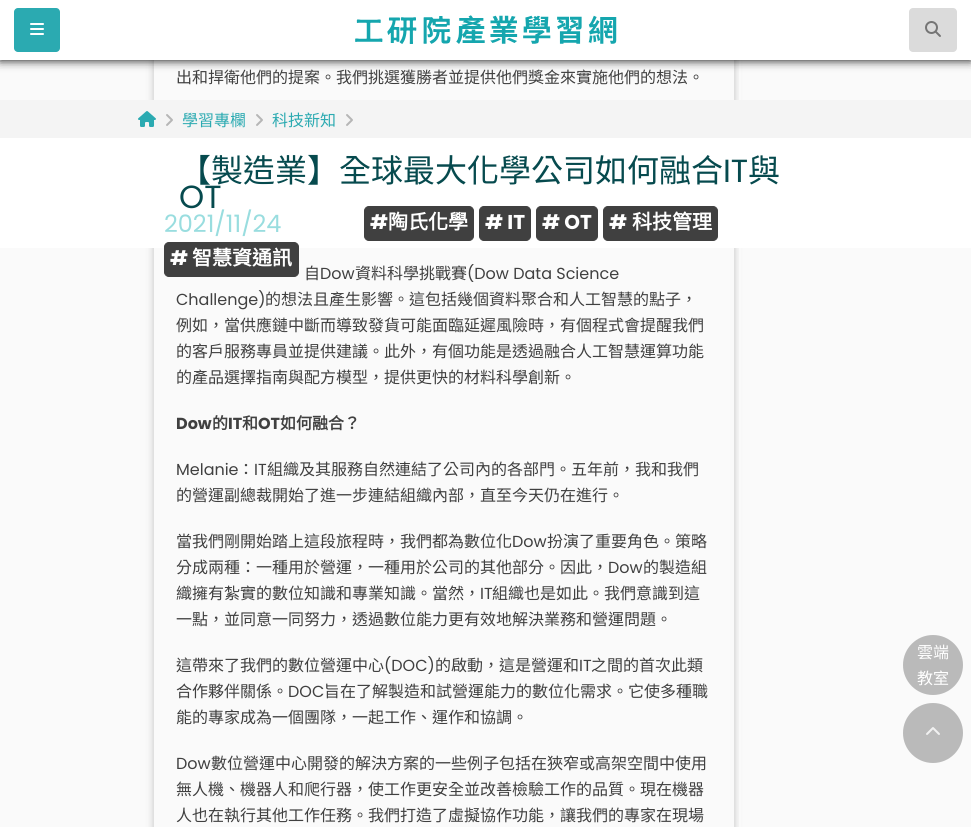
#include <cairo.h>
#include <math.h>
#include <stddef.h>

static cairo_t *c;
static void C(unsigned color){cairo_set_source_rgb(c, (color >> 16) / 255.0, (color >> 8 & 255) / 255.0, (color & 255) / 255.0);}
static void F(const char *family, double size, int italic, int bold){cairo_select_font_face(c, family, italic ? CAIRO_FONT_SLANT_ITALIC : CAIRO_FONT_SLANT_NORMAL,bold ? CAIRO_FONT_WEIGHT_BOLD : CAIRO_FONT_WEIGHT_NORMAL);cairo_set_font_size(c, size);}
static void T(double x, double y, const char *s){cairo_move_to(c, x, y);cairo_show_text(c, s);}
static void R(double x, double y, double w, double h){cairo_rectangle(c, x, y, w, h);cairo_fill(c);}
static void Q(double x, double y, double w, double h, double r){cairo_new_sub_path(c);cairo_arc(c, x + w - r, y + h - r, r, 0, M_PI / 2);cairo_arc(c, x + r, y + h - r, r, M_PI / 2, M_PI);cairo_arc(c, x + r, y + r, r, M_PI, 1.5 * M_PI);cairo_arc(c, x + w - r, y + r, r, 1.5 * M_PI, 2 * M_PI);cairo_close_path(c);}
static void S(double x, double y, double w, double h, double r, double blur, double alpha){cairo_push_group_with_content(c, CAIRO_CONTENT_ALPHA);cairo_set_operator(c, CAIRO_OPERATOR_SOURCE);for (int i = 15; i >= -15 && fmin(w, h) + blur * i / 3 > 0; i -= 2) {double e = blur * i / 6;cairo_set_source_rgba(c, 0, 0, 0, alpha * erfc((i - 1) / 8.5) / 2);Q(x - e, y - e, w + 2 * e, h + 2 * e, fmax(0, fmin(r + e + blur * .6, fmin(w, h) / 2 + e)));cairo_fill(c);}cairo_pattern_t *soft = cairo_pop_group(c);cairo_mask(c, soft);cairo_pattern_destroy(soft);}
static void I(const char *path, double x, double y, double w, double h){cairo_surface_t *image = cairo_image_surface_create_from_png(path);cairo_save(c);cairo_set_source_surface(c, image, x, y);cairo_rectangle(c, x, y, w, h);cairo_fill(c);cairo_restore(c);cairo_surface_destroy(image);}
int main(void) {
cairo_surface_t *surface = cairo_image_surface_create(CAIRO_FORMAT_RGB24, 971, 827);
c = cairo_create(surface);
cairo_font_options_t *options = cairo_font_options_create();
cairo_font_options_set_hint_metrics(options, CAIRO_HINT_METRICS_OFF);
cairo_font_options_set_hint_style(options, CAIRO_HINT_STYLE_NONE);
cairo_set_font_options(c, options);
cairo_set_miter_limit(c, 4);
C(0xfafafa);
cairo_paint(c);
cairo_save(c);
cairo_set_fill_rule(c,CAIRO_FILL_RULE_EVEN_ODD);
cairo_new_path(c);
cairo_move_to(c,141,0);
cairo_line_to(c,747,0);
cairo_line_to(c,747,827);
cairo_line_to(c,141,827);
cairo_close_path(c);
cairo_move_to(c,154,-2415);
cairo_line_to(c,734,-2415);
cairo_line_to(c,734,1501);
cairo_line_to(c,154,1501);
cairo_close_path(c);
cairo_clip(c);
C(0x000000);
S(154,-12,580,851,0,4,.24);
cairo_restore(c);
C(0xfafafa);
R(739,60,2,767);
C(0x000000);
S(0,0,971,60,0,5,1);
C(0xffffff);
R(0,0,971,60);
C(0x2baab1);
Q(14,8,46,44,4);
cairo_fill(c);
I("1.png",30,23,14,12);
I("2.png",355,15,262,29);
C(0xdbdbdb);
Q(909,8,48,44,4);
cairo_fill(c);
I("3.png",925,21,16,16);
F("Noto Sans CJK TC",16,0,0);
C(0x404040);
T(176,83,"出和捍衛他們的提案。我們挑選獲勝者並提供他們獎金來實施他們的想法。");
T(304,279,"自");
F("Poppins",16,0,0);
T(320,279,"Dow");
F("Noto Sans CJK TC",16,0,0);
T(355,279,"資料科學挑戰賽");
F("Poppins",16,0,0);
T(467,279,"(Dow Data Science");
T(176,305,"Challenge)");
F("Noto Sans CJK TC",16,0,0);
T(265,305,"的想法且產生影響。這包括幾個資料聚合和人工智慧的點子，");
T(176,331,"例如，當供應鏈中斷而導致發貨可能面臨延遲風險時，有個程式會提醒我們");
T(176,357,"的客戶服務專員並提供建議。此外，有個功能是透過融合人工智慧運算功能");
T(176,383,"的產品選擇指南與配方模型，提供更快的材料科學創新。");
F("Poppins",16,0,1);
T(176,429,"Dow");
F("Noto Sans CJK TC",16,0,1);
T(212,429,"的");
F("Poppins",16,0,1);
T(228,429,"IT");
F("Noto Sans CJK TC",16,0,1);
T(242,429,"和");
F("Poppins",16,0,1);
T(258,429,"OT");
F("Noto Sans CJK TC",16,0,1);
T(280,429,"如何融合？");
F("Poppins",16,0,0);
T(176,475,"Melanie");
F("Noto Sans CJK TC",16,0,0);
T(238,475,"：");
F("Poppins",16,0,0);
T(254,475,"IT");
F("Noto Sans CJK TC",16,0,0);
T(267,475,"組織及其服務自然連結了公司內的各部門。五年前，我和我們");
T(176,501,"的營運副總裁開始了進一步連結組織內部，直至今天仍在進行。");
T(176,547,"當我們剛開始踏上這段旅程時，我們都為數位化");
F("Poppins",16,0,0);
T(512,547,"Dow");
F("Noto Sans CJK TC",16,0,0);
T(547,547,"扮演了重要角色。策略");
T(176,573,"分成兩種：一種用於營運，一種用於公司的其他部分。因此，");
F("Poppins",16,0,0);
T(608,573,"Dow");
F("Noto Sans CJK TC",16,0,0);
T(643,573,"的製造組");
T(176,599,"織擁有紮實的數位知識和專業知識。當然，");
F("Poppins",16,0,0);
T(480,599,"IT");
F("Noto Sans CJK TC",16,0,0);
T(492,599,"組織也是如此。我們意識到這");
T(176,625,"一點，並同意一同努力，透過數位能力更有效地解決業務和營運問題。");
T(176,671,"這帶來了我們的數位營運中心");
F("Poppins",16,0,0);
T(384,671,"(DOC)");
F("Noto Sans CJK TC",16,0,0);
T(435,671,"的啟動，這是營運和");
F("Poppins",16,0,0);
T(579,671,"IT");
F("Noto Sans CJK TC",16,0,0);
T(591,671,"之間的首次此類");
T(176,697,"合作夥伴關係。");
F("Poppins",16,0,0);
T(288,697,"DOC");
F("Noto Sans CJK TC",16,0,0);
T(324,697,"旨在了解製造和試營運能力的數位化需求。它使多種職");
T(176,723,"能的專家成為一個團隊，一起工作、運作和協調。");
F("Poppins",16,0,0);
T(176,769,"Dow");
F("Noto Sans CJK TC",16,0,0);
T(211,769,"數位營運中心開發的解決方案的一些例子包括在狹窄或高架空間中使用");
T(176,795,"無人機、機器人和爬行器，使工作更安全並改善檢驗工作的品質。現在機器");
T(176,821,"人也在執行其他工作任務。我們打造了虛擬協作功能，讓我們的專家在現場");
C(0xf4f4f4);
R(0,100,971,38);
I("4.png",138,111,18,16);
I("5.png",166,114,7,12);
C(0x2baab1);
T(182,126,"學習專欄");
I("5.png",256,114,7,12);
T(272,126,"科技新知");
I("5.png",346,114,7,12);
C(0xffffff);
R(0,138,971,110);
F("Noto Sans CJK TC",32,0,0);
C(0x064a4e);
T(179,182,"【製造業】全球最大化學公司如何融合");
F("Poppins",32,0,0);
T(723,182,"IT");
F("Noto Sans CJK TC",32,0,0);
T(748,182,"與");
F("Poppins",32,0,0);
T(179,208,"OT");
F("Poppins",24,0,0);
C(0x99dddf);
T(164,232,"2021/11/24");
C(0x404040);
Q(364.5,206.5,109,34,4.5);
cairo_fill_preserve(c);
cairo_set_line_width(c,1);
cairo_stroke(c);
F("Poppins",20,0,1);
C(0xffffff);
T(370,229,"#");
F("Noto Sans CJK TC",20,0,1);
T(388,229,"陶氏化學");
C(0x404040);
Q(479.5,206.5,51,34,4.5);
cairo_fill_preserve(c);
cairo_stroke(c);
F("Poppins",20,0,1);
C(0xffffff);
T(485,229,"# IT");
C(0x404040);
Q(536.5,206.5,61,34,4.5);
cairo_fill_preserve(c);
cairo_stroke(c);
C(0xffffff);
T(542,229,"# OT");
C(0x404040);
Q(603.5,206.5,114,34,4.5);
cairo_fill_preserve(c);
cairo_stroke(c);
C(0xffffff);
T(609,229,"#");
F("Noto Sans CJK TC",20,0,1);
T(632,229,"科技管理");
C(0x404040);
Q(164.5,242.5,134,34,4.5);
cairo_fill_preserve(c);
cairo_stroke(c);
F("Poppins",20,0,1);
C(0xffffff);
T(170,265,"#");
F("Noto Sans CJK TC",20,0,1);
T(192,265,"智慧資通訊");
C(0xbababa);
cairo_new_path(c);
cairo_arc(c,933,665,30,0,2 * M_PI);
cairo_fill(c);
F("Noto Sans CJK TC",16,0,0);
C(0xffffff);
T(917,658,"雲端");
T(917,684,"教室");
C(0xbababa);
cairo_new_path(c);
cairo_arc(c,933,733,30,0,2 * M_PI);
cairo_fill(c);
I("6.png",926,727,14,8);
cairo_surface_write_to_png(surface, "o.png");
cairo_font_options_destroy(options);
cairo_destroy(c);
cairo_surface_destroy(surface);
return 0;
}
